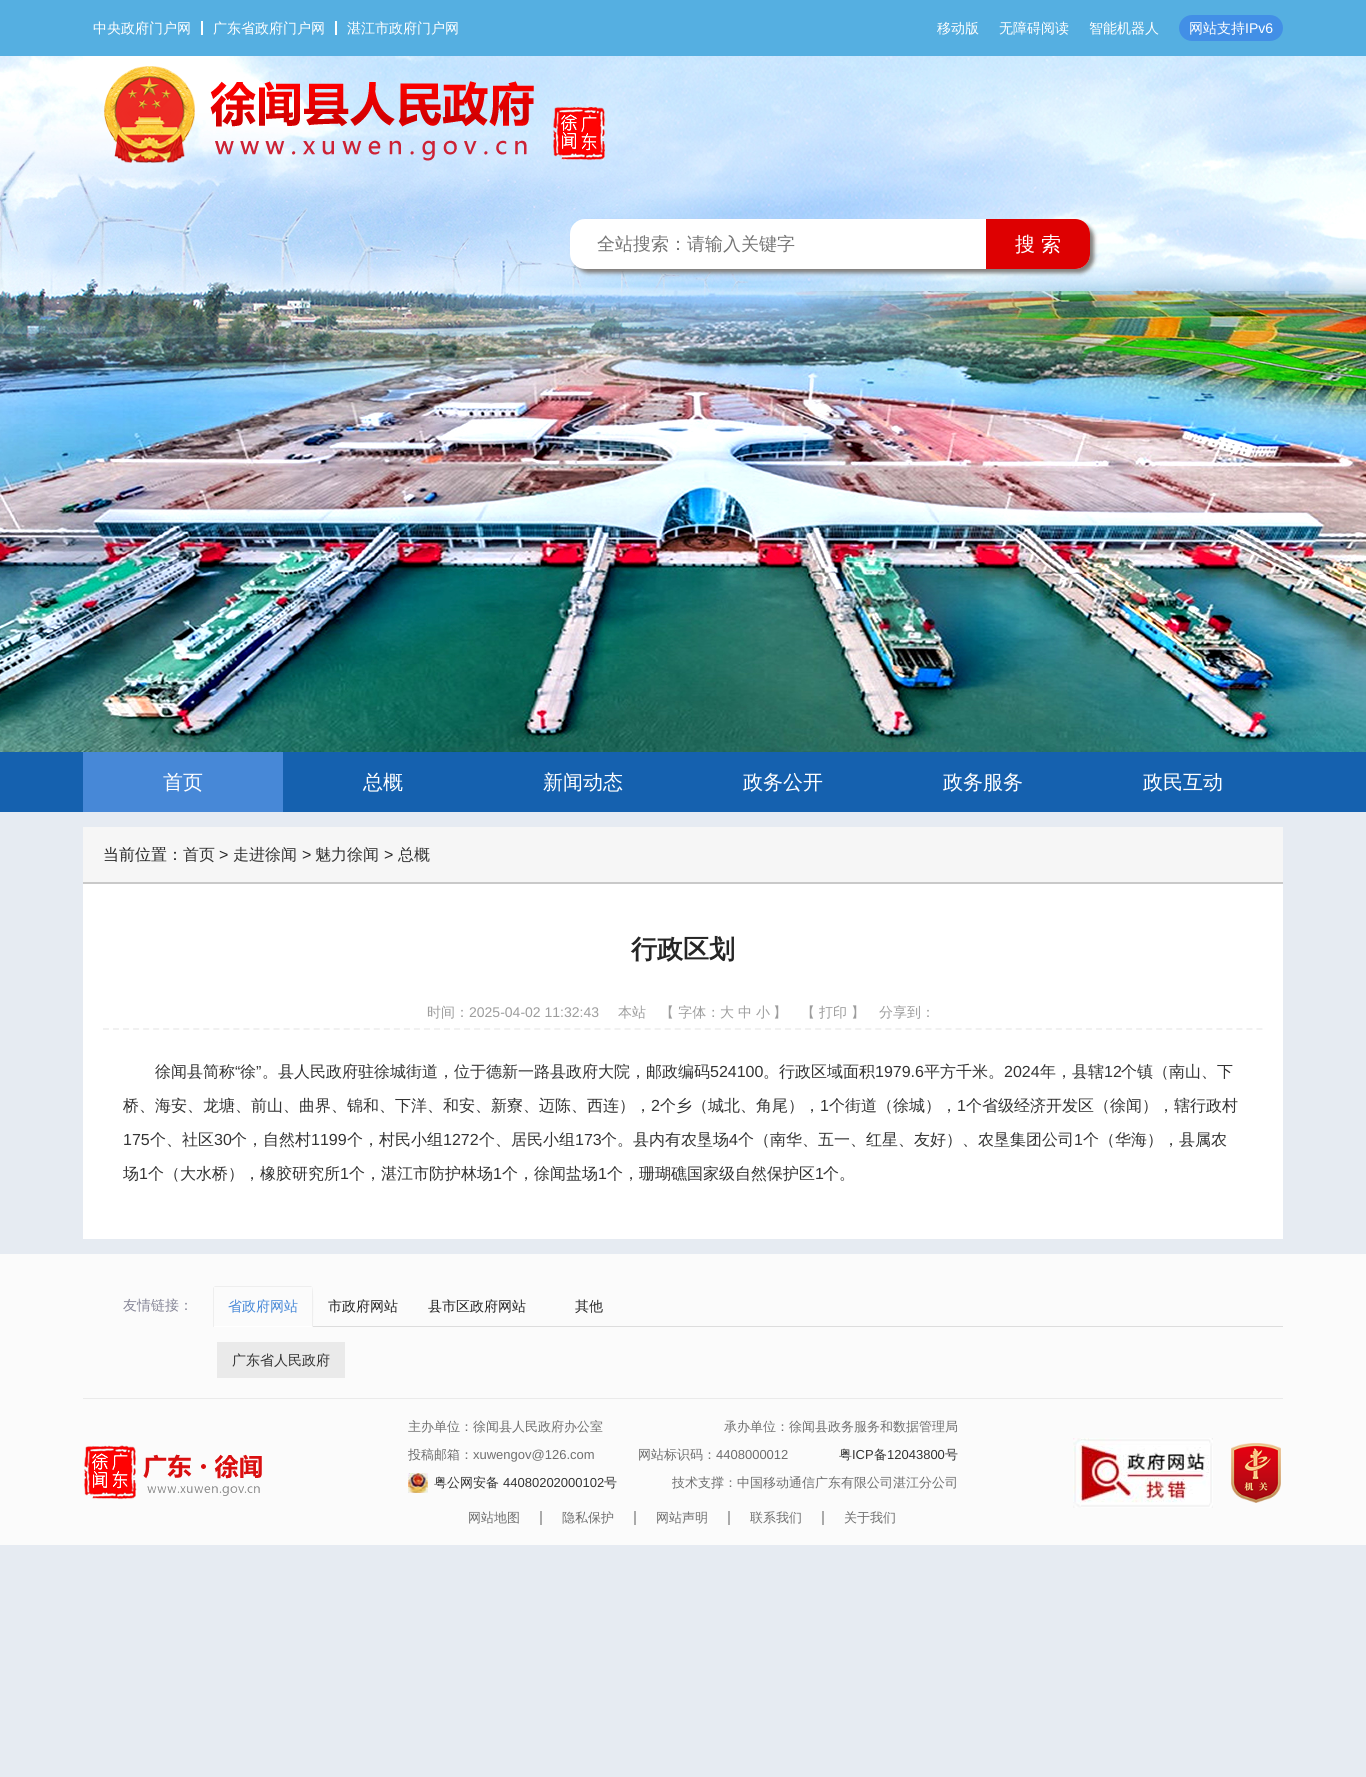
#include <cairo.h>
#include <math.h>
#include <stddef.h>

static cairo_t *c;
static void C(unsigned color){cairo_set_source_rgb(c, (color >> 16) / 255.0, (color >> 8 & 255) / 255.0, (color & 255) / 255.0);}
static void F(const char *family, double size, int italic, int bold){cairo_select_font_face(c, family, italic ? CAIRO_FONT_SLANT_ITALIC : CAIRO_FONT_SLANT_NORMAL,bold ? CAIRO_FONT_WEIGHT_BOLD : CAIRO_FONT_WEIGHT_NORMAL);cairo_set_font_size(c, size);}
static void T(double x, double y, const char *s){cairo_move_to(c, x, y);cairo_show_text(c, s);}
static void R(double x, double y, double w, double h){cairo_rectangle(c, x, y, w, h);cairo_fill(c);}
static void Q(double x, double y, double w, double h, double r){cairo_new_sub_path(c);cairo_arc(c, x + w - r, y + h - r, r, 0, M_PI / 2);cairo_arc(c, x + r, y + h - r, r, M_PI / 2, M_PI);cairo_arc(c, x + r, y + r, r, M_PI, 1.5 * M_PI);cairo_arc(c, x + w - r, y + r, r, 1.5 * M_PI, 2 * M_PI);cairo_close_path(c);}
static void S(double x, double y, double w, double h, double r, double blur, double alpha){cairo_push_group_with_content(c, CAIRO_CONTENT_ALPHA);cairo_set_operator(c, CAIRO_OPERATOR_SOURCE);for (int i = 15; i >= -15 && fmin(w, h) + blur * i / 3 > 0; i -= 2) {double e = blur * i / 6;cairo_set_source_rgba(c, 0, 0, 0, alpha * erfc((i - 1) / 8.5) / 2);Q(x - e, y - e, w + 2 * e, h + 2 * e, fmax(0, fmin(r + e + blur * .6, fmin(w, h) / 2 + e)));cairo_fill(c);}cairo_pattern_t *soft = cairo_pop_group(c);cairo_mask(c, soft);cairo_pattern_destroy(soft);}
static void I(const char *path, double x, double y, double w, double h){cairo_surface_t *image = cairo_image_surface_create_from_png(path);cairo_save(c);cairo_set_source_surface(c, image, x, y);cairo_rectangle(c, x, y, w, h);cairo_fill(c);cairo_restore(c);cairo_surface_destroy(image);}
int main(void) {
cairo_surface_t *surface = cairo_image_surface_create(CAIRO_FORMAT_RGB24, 1366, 1777);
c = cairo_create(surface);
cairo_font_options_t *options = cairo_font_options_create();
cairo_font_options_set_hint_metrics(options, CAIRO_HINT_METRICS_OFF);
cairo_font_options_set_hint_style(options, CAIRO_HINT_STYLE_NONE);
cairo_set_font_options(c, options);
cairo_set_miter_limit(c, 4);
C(0xe6ebf2);
cairo_paint(c);
I("1.png",0,56,1366,696);
C(0x55afe1);
R(0,0,1366,56);
F("WenQuanYi Zen Hei Medium",14,0,0);
C(0xffffff);
T(93,33,"中央政府门户网");
R(201,21,2,14);
T(213,33,"广东省政府门户网");
R(335,21,2,14);
T(347,33,"湛江市政府门户网");
T(937,33,"移动版");
T(999,33,"无障碍阅读");
T(1089,33,"智能机器人");
C(0x428fe6);
Q(1179,15,104,26,13);
cairo_fill(c);
C(0xffffff);
T(1189,33,"网站支持");
F("Liberation Sans",14,0,0);
T(1245,33,"IPv6");
I("2.png",104,66,501,97);
C(0x827f7c);
S(574,223,520,50,15,2,1);
C(0xffffff);
Q(571,220,518,48,14);
cairo_fill_preserve(c);
cairo_stroke(c);
F("WenQuanYi Zen Hei Medium",18,0,0);
C(0x757575);
T(597,250,"全站搜索：请输入关键字");
C(0xde0001);
cairo_new_path(c);
cairo_move_to(c,986,219);
cairo_line_to(c,1075,219);
cairo_curve_to(c,1083.5,219,1090,225.5,1090,234);
cairo_line_to(c,1090,254);
cairo_curve_to(c,1090,262.5,1083.5,269,1075,269);
cairo_line_to(c,986,269);
cairo_close_path(c);
cairo_fill(c);
F("WenQuanYi Zen Hei Medium",20,0,0);
C(0xffffff);
T(1015,251,"搜 索");
C(0x1561af);
R(0,752,1366,60);
C(0x4788d7);
R(83,752,200,60);
C(0xffffff);
T(163,789,"首页");
T(363,789,"总概");
T(543,789,"新闻动态");
T(743,789,"政务公开");
T(943,789,"政务服务");
T(1143,789,"政民互动");
C(0xf6f6f6);
R(83,827,1200,55);
C(0xc9c9c9);
R(83,882,1200,2);
F("WenQuanYi Zen Hei Medium",16,0,0);
C(0x252525);
T(103,860,"当前位置：");
C(0x333333);
T(183,860,"首页");
F("Liberation Sans",16,0,0);
C(0x252525);
T(219,860,">");
F("WenQuanYi Zen Hei Medium",16,0,0);
C(0x333333);
T(233,860,"走进徐闻");
F("Liberation Sans",16,0,0);
C(0x252525);
T(302,860,">");
F("WenQuanYi Zen Hei Medium",16,0,0);
C(0x333333);
T(315,860,"魅力徐闻");
F("Liberation Sans",16,0,0);
C(0x252525);
T(384,860,">");
F("WenQuanYi Zen Hei Medium",16,0,0);
C(0x333333);
T(398,860,"总概");
C(0xffffff);
R(83,884,1200,355);
F("WenQuanYi Zen Hei",26,0,1);
C(0x252525);
T(631,958,"行政区划");
cairo_new_path(c);
cairo_move_to(c,103,1029);
cairo_line_to(c,1263,1029);
C(0xf1f1f1);
cairo_set_dash(c,(double[]){6,4.03},2,0);
cairo_stroke(c);
F("WenQuanYi Zen Hei Medium",14,0,0);
C(0x9d9d9d);
T(427,1017,"时间：");
F("Liberation Sans",14,0,0);
T(469,1017,"2025-04-02 11:32:43");
F("WenQuanYi Zen Hei Medium",14,0,0);
T(618,1017,"本站");
T(660,1017,"【 字体：");
T(720,1017,"大");
T(738,1017,"中");
T(756,1017,"小");
T(773,1017,"】");
T(801,1017,"【");
T(819,1017,"打印");
T(851,1017,"】");
T(879,1017,"分享到：");
F("WenQuanYi Zen Hei Medium",16,0,0);
C(0x333333);
T(155,1077,"徐闻县简称");
F("Liberation Sans",16,0,0);
T(235,1077,"“");
F("WenQuanYi Zen Hei Medium",16,0,0);
T(240,1077,"徐");
F("Liberation Sans",16,0,0);
T(256,1077,"”");
F("WenQuanYi Zen Hei Medium",16,0,0);
T(262,1077,"。县人民政府驻徐城街道，位于德新一路县政府大院，邮政编码");
F("Liberation Sans",16,0,0);
T(710,1077,"524100");
F("WenQuanYi Zen Hei Medium",16,0,0);
T(763,1077,"。行政区域面积");
F("Liberation Sans",16,0,0);
T(875,1077,"1979.6");
F("WenQuanYi Zen Hei Medium",16,0,0);
T(924,1077,"平方千米。");
F("Liberation Sans",16,0,0);
T(1004,1077,"2024");
F("WenQuanYi Zen Hei Medium",16,0,0);
T(1040,1077,"年，县辖");
F("Liberation Sans",16,0,0);
T(1104,1077,"12");
F("WenQuanYi Zen Hei Medium",16,0,0);
T(1121,1077,"个镇（南山、下");
T(123,1111,"桥、海安、龙塘、前山、曲界、锦和、下洋、和安、新寮、迈陈、西连），");
F("Liberation Sans",16,0,0);
T(651,1111,"2");
F("WenQuanYi Zen Hei Medium",16,0,0);
T(660,1111,"个乡（城北、角尾），");
F("Liberation Sans",16,0,0);
T(820,1111,"1");
F("WenQuanYi Zen Hei Medium",16,0,0);
T(829,1111,"个街道（徐城），");
F("Liberation Sans",16,0,0);
T(957,1111,"1");
F("WenQuanYi Zen Hei Medium",16,0,0);
T(966,1111,"个省级经济开发区（徐闻），辖行政村");
F("Liberation Sans",16,0,0);
T(123,1145,"175");
F("WenQuanYi Zen Hei Medium",16,0,0);
T(150,1145,"个、社区");
F("Liberation Sans",16,0,0);
T(214,1145,"30");
F("WenQuanYi Zen Hei Medium",16,0,0);
T(231,1145,"个，自然村");
F("Liberation Sans",16,0,0);
T(311,1145,"1199");
F("WenQuanYi Zen Hei Medium",16,0,0);
T(347,1145,"个，村民小组");
F("Liberation Sans",16,0,0);
T(443,1145,"1272");
F("WenQuanYi Zen Hei Medium",16,0,0);
T(479,1145,"个、居民小组");
F("Liberation Sans",16,0,0);
T(575,1145,"173");
F("WenQuanYi Zen Hei Medium",16,0,0);
T(601,1145,"个。县内有农垦场");
F("Liberation Sans",16,0,0);
T(729,1145,"4");
F("WenQuanYi Zen Hei Medium",16,0,0);
T(738,1145,"个（南华、五一、红星、友好）、农垦集团公司");
F("Liberation Sans",16,0,0);
T(1074,1145,"1");
F("WenQuanYi Zen Hei Medium",16,0,0);
T(1083,1145,"个（华海），县属农");
T(123,1179,"场");
F("Liberation Sans",16,0,0);
T(139,1179,"1");
F("WenQuanYi Zen Hei Medium",16,0,0);
T(148,1179,"个（大水桥），橡胶研究所");
F("Liberation Sans",16,0,0);
T(340,1179,"1");
F("WenQuanYi Zen Hei Medium",16,0,0);
T(349,1179,"个，湛江市防护林场");
F("Liberation Sans",16,0,0);
T(493,1179,"1");
F("WenQuanYi Zen Hei Medium",16,0,0);
T(502,1179,"个，徐闻盐场");
F("Liberation Sans",16,0,0);
T(598,1179,"1");
F("WenQuanYi Zen Hei Medium",16,0,0);
T(607,1179,"个，珊瑚礁国家级自然保护区");
F("Liberation Sans",16,0,0);
T(815,1179,"1");
F("WenQuanYi Zen Hei Medium",16,0,0);
T(823,1179,"个。");
C(0xfbfbfb);
R(0,1254,1366,291);
C(0xeaeaea);
R(83,1398,1200,1);
F("WenQuanYi Zen Hei Medium",14,0,0);
C(0x878798);
T(123,1310,"友情链接：");
C(0xdddddd);
R(213,1326,1070,1);
C(0xeeeeee);
cairo_new_path(c);
cairo_move_to(c,215,1286);
cairo_line_to(c,214,1287);
cairo_line_to(c,312,1287);
cairo_line_to(c,311,1286);
cairo_close_path(c);
cairo_fill(c);
cairo_new_path(c);
cairo_move_to(c,313,1327);
cairo_curve_to(c,313,1322,314,1288,312,1287);
cairo_line_to(c,312,1326);
cairo_close_path(c);
cairo_fill(c);
C(0xffffff);
cairo_new_path(c);
cairo_move_to(c,313,1327);
cairo_line_to(c,312,1326);
cairo_line_to(c,214,1326);
cairo_line_to(c,213,1327);
cairo_close_path(c);
cairo_fill(c);
C(0xeeeeee);
cairo_new_path(c);
cairo_move_to(c,213,1327);
cairo_line_to(c,214,1326);
cairo_line_to(c,214,1287);
cairo_line_to(c,213,1288);
cairo_close_path(c);
cairo_fill(c);
C(0x4788d7);
T(228,1311,"省政府网站");
C(0x252525);
T(328,1311,"市政府网站");
T(428,1311,"县市区政府网站");
T(575,1311,"其他");
C(0xeaeaea);
R(217,1342,128,36);
C(0x333333);
T(232,1365,"广东省人民政府");
I("3.png",84,1445,178,55);
F("WenQuanYi Zen Hei Medium",13,0,0);
C(0x6e6e6e);
T(408,1431,"主办单位：徐闻县人民政府办公室");
T(724,1431,"承办单位：徐闻县政务服务和数据管理局");
T(408,1459,"投稿邮箱：");
F("Liberation Sans",13,0,0);
T(473,1459,"xuwengov@126.com");
F("WenQuanYi Zen Hei Medium",13,0,0);
T(638,1459,"网站标识码：");
F("Liberation Sans",13,0,0);
T(716,1459,"4408000012");
F("WenQuanYi Zen Hei Medium",13,0,0);
C(0x333333);
T(839,1459,"粤");
F("Liberation Sans",13,0,0);
T(852,1459,"ICP");
F("WenQuanYi Zen Hei Medium",13,0,0);
T(874,1459,"备");
F("Liberation Sans",13,0,0);
T(887,1459,"12043800");
F("WenQuanYi Zen Hei Medium",13,0,0);
T(945,1459,"号");
I("4.png",408,1473,20,20);
T(434,1487,"粤公网安备");
F("Liberation Sans",13,0,0);
T(503,1487,"44080202000102");
F("WenQuanYi Zen Hei Medium",13,0,0);
T(604,1487,"号");
C(0x6e6e6e);
T(672,1487,"技术支撑：中国移动通信广东有限公司湛江分公司");
I("5.png",1073,1438,140,70);
I("6.png",1231,1443,50,60);
T(468,1522,"网站地图");
C(0xaaaaaa);
R(540,1511,2,14);
C(0x6e6e6e);
T(562,1522,"隐私保护");
C(0xaaaaaa);
R(634,1511,2,14);
C(0x6e6e6e);
T(656,1522,"网站声明");
C(0xaaaaaa);
R(728,1511,2,14);
C(0x6e6e6e);
T(750,1522,"联系我们");
C(0xaaaaaa);
R(822,1511,2,14);
C(0x6e6e6e);
T(844,1522,"关于我们");
cairo_surface_write_to_png(surface, "o.png");
cairo_font_options_destroy(options);
cairo_destroy(c);
cairo_surface_destroy(surface);
return 0;
}
